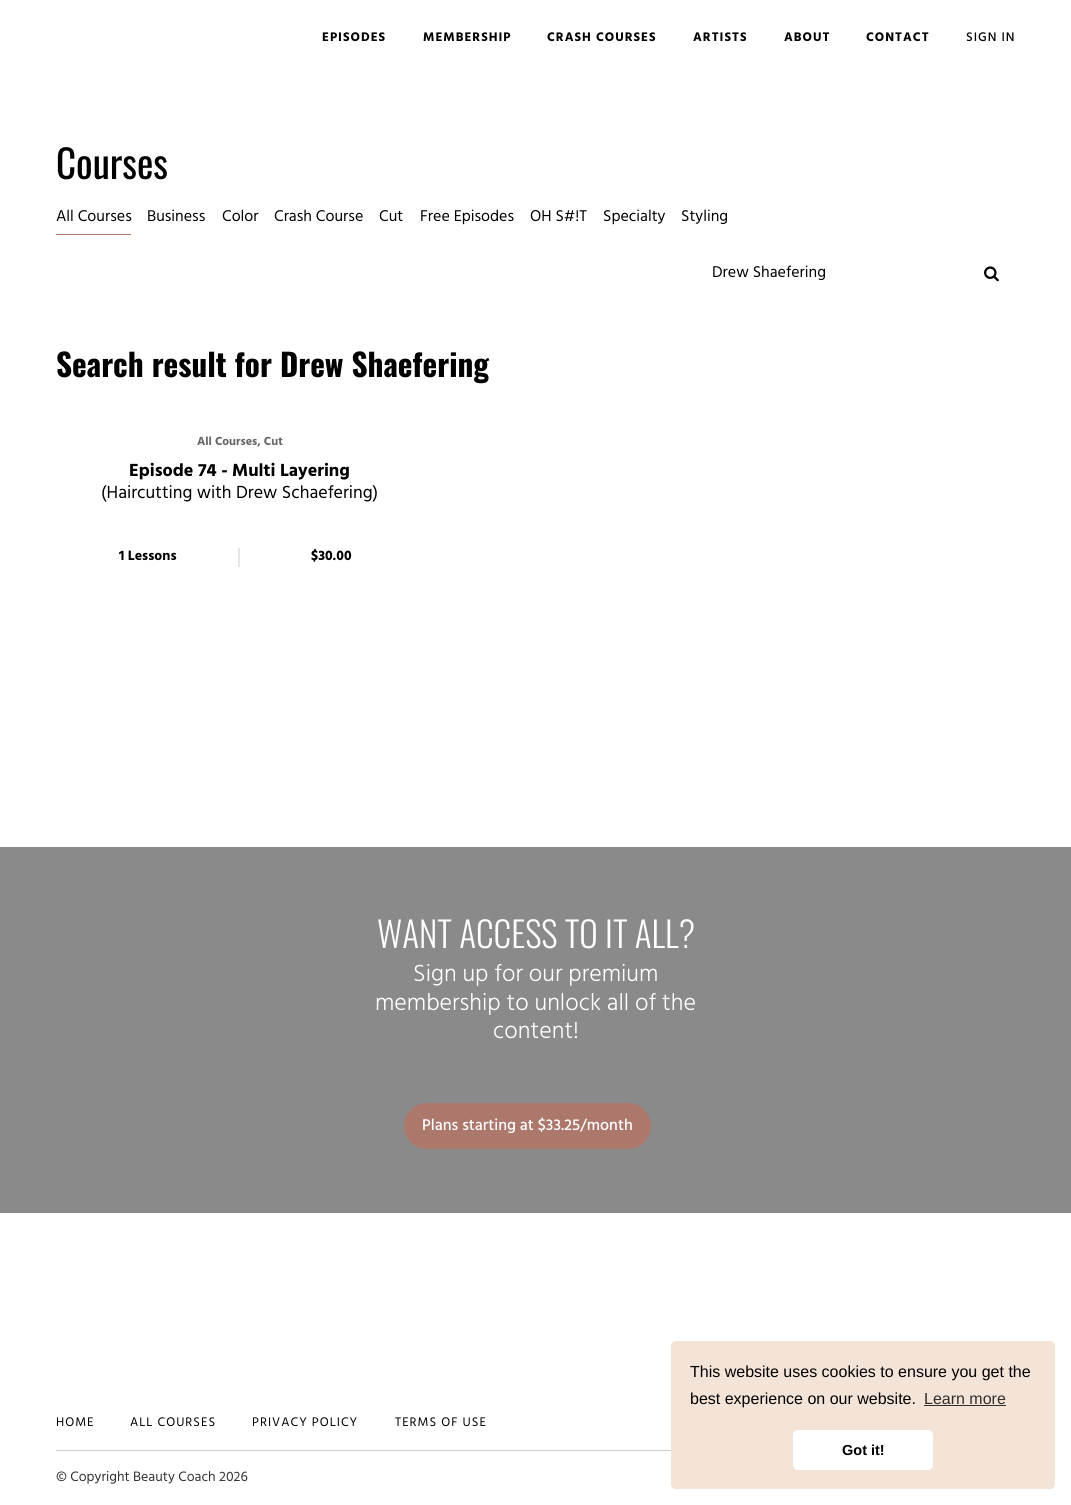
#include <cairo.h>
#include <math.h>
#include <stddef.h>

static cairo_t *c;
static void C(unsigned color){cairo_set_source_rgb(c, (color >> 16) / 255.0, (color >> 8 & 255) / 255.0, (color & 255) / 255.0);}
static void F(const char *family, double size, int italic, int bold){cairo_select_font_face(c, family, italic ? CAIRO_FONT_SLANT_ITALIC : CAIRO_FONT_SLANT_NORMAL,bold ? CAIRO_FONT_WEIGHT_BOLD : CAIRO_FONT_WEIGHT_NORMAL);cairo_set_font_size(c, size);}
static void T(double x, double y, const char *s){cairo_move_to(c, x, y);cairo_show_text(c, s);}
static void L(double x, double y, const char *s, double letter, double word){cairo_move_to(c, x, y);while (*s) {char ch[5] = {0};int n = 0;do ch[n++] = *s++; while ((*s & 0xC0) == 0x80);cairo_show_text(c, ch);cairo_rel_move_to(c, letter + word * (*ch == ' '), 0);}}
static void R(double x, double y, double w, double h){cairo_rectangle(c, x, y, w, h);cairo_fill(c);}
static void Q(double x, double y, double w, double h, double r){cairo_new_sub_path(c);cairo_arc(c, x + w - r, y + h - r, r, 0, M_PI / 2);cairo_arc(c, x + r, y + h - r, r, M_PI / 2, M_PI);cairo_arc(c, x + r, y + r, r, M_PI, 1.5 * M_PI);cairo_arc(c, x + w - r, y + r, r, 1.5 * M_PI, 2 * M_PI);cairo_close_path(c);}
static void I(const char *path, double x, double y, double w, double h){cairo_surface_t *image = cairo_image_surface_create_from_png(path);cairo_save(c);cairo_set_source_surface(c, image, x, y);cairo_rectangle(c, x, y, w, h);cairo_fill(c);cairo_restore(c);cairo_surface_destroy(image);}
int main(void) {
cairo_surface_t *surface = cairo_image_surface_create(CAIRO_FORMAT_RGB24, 1071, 1505);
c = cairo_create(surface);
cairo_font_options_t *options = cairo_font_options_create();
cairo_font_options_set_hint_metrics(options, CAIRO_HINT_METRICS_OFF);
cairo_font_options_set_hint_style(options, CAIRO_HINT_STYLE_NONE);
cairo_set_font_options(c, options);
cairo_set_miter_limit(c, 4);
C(0xffffff);
cairo_paint(c);
F("Hind",12.75,0,1);
C(0x000000);
L(322,41,"EPISODES",1,0);
L(423,41,"MEMBERSHIP",1,0);
L(547,41,"CRASH COURSES",1,0);
L(693,41,"ARTISTS",1,0);
L(784,41,"ABOUT",1,0);
L(866,41,"CONTACT",1,0);
F("Hind Medium",12.75,0,0);
L(966,41,"SIGN IN",1,0);
F("Oswald",39,0,0);
T(56,179,"Courses");
F("Hind",16,0,0);
T(56,221,"All Courses");
C(0xac786c);
R(56,234,75,1);
C(0x000000);
T(147,221,"Business");
T(222,221,"Color");
T(274,221,"Crash Course");
T(379,221,"Cut");
T(420,221,"Free Episodes");
T(530,221,"OH S#!T");
T(603,221,"Specialty");
T(681,221,"Styling");
T(712,277,"Drew Shaefering");
I("1.png",984,266,15,16);
F("Oswald",31.25,0,1);
T(56,377,"Search result for Drew Shaefering");
F("Hind",12,0,1);
C(0x666666);
T(197,445,"All Courses, Cut");
F("Hind",18,0,1);
C(0x000000);
T(129,476,"Episode 74 - Multi Layering");
F("Hind",18,0,0);
T(101,498,"(Haircutting with Drew Schaefering)");
F("Hind",14,0,1);
T(119,560,"1 Lessons");
C(0xe6e6e6);
R(238,548,2,19);
C(0x000000);
T(311,560,"$30.00");
C(0x8a8a8a);
R(0,847,1071,366);
F("Oswald Light",35.25,0,0);
C(0xffffff);
T(377,948,"WANT ACCESS TO IT ALL?");
F("Hind Light",24,0,0);
T(413,981,"Sign up for our premium");
T(375,1010,"membership to unlock all of the");
T(493,1038,"content!");
C(0xac786c);
Q(405,1104,245,44,22);
cairo_fill_preserve(c);
cairo_stroke(c);
F("Hind Medium",16,0,0);
C(0xffffff);
T(422,1130,"Plans starting at $33.25/month");
F("Hind",12.75,0,0);
C(0x000000);
L(56,1426,"HOME",1,0);
L(130,1426,"ALL COURSES",1,0);
L(252,1426,"PRIVACY POLICY",1,0);
L(395,1426,"TERMS OF USE",1,0);
C(0xcccccc);
R(56,1450,615,1);
F("Hind",14,0,0);
C(0x333333);
T(56,1481,"© Copyright Beauty Coach 2026");
C(0xf4e4d7);
Q(671,1341,384,148,5);
cairo_fill(c);
F("Liberation Sans",16,0,0);
C(0x000000);
T(690,1377,"This website uses cookies to ensure you get the");
T(690,1404,"best experience on our website.");
C(0x312e2b);
T(924,1404,"Learn more");
R(924,1405,82,1);
C(0xffffff);
Q(793,1430,140,40,5);
cairo_fill(c);
F("Liberation Sans",14.5,0,1);
C(0x000000);
T(842,1455,"Got it!");
cairo_surface_write_to_png(surface, "o.png");
cairo_font_options_destroy(options);
cairo_destroy(c);
cairo_surface_destroy(surface);
return 0;
}
